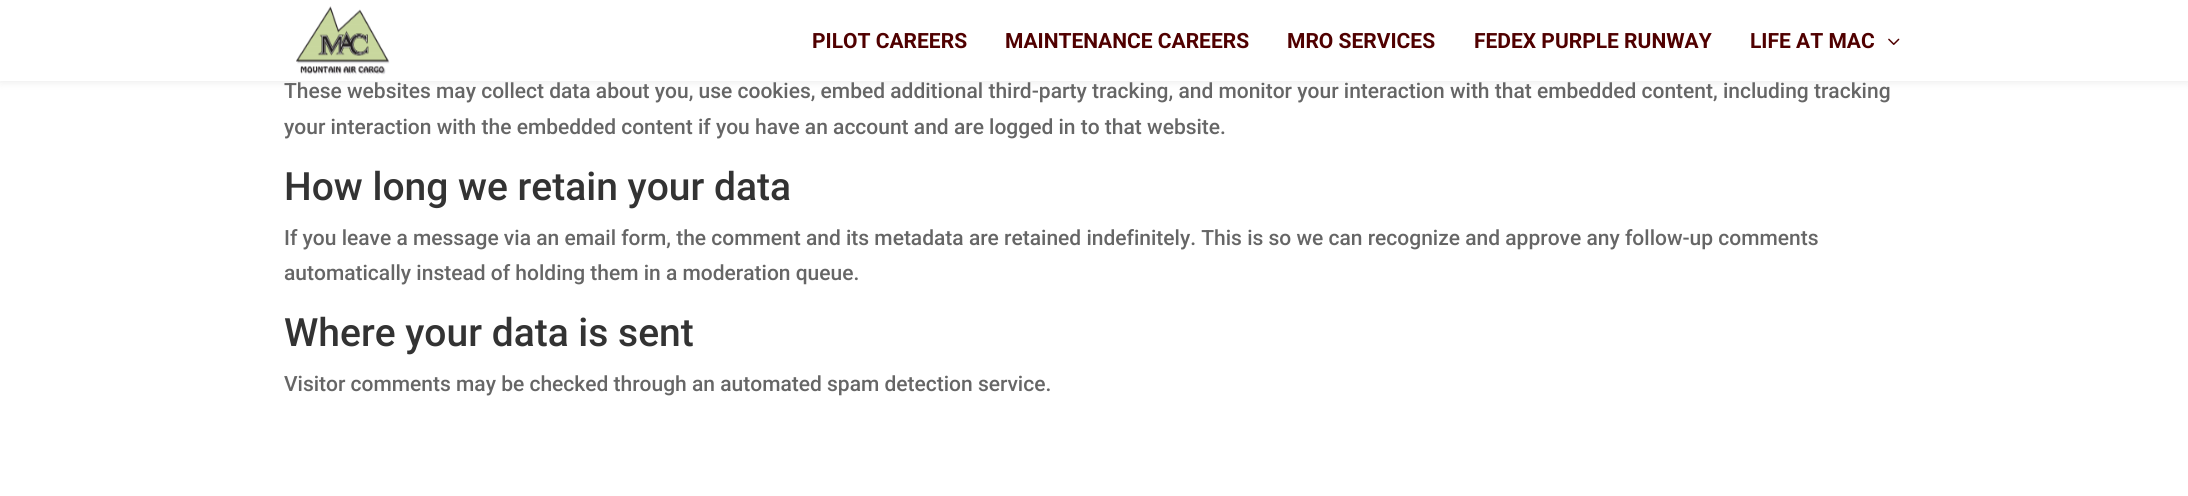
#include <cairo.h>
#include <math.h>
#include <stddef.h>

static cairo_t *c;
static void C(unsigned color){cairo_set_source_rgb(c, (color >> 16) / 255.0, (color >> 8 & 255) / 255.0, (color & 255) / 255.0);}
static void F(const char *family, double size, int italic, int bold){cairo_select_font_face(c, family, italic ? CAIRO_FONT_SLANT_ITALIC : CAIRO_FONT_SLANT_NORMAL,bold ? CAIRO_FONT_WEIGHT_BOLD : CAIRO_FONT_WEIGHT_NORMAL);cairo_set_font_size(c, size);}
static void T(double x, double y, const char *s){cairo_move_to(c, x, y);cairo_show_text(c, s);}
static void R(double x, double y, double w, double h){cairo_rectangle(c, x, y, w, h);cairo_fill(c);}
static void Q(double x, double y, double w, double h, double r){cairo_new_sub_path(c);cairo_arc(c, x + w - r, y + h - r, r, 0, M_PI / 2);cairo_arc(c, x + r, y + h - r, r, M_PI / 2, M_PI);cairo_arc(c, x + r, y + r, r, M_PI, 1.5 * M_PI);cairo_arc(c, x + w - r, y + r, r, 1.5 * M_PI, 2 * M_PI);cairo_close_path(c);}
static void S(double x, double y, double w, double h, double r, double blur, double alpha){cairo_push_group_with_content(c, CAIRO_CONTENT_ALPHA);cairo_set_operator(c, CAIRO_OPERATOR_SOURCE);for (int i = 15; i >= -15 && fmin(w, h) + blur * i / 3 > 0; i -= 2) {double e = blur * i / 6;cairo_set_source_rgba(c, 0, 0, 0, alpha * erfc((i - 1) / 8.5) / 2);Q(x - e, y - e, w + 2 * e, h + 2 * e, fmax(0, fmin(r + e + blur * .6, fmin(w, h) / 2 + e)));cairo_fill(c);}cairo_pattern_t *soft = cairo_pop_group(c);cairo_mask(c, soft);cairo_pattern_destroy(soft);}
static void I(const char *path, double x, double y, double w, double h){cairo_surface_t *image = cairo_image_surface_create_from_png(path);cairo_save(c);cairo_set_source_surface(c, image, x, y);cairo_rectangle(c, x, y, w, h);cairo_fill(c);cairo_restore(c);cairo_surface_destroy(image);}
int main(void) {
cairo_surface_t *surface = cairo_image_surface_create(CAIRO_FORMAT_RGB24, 2188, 496);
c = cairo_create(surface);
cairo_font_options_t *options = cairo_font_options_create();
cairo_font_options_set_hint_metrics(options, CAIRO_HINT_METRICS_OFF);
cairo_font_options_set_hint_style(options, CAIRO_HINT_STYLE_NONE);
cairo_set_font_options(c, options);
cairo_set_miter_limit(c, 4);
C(0xffffff);
cairo_paint(c);
C(0x000000);
S(0,0,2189,81,0,5,.1);
C(0xffffff);
R(0,0,2188,81);
I("1.png",296,6,94,69);
F("Roboto",21,0,1);
C(0x500000);
T(812,48,"PILOT CAREERS");
T(1005,48,"MAINTENANCE CAREERS");
T(1287,48,"MRO SERVICES");
T(1474,48,"FEDEX PURPLE RUNWAY");
T(1750,48,"LIFE AT MAC");
I("2.png",1888,38,12,7);
F("Roboto Medium",21,0,0);
C(0x666666);
T(284,98,"These websites may collect data about you, use cookies, embed additional third-party tracking, and monitor your interaction with that embedded content, including tracking");
T(284,134,"your interaction with the embedded content if you have an account and are logged in to that website.");
F("Roboto Medium",39,0,0);
C(0x333333);
T(284,200,"How long we retain your data");
F("Roboto Medium",21,0,0);
C(0x666666);
T(284,245,"If you leave a message via an email form, the comment and its metadata are retained indefinitely. This is so we can recognize and approve any follow-up comments");
T(284,280,"automatically instead of holding them in a moderation queue.");
F("Roboto Medium",39,0,0);
C(0x333333);
T(284,346,"Where your data is sent");
F("Roboto Medium",21,0,0);
C(0x666666);
T(284,391,"Visitor comments may be checked through an automated spam detection service.");
cairo_surface_write_to_png(surface, "o.png");
cairo_font_options_destroy(options);
cairo_destroy(c);
cairo_surface_destroy(surface);
return 0;
}
